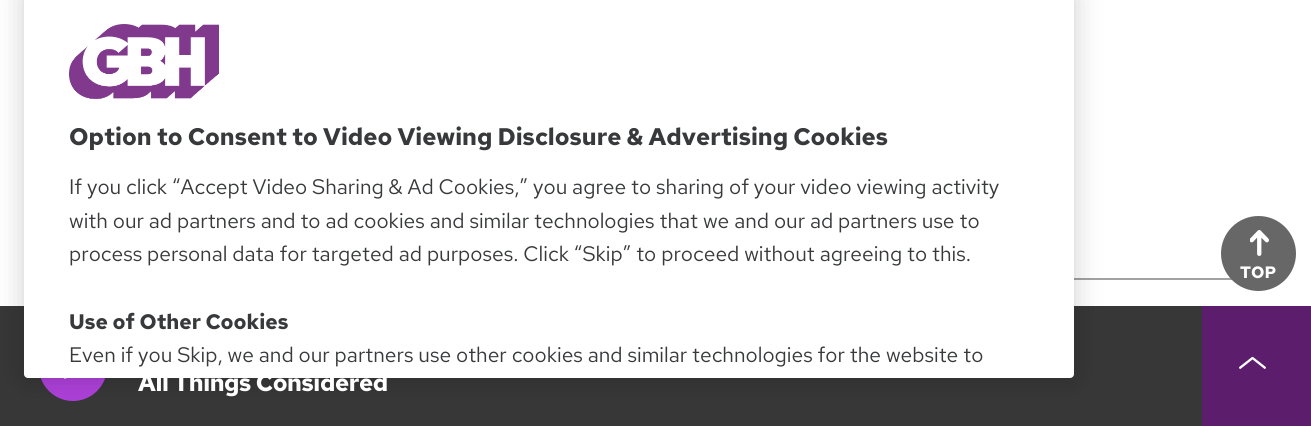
#include <cairo.h>
#include <math.h>
#include <stddef.h>

static cairo_t *c;
static void C(unsigned color){cairo_set_source_rgb(c, (color >> 16) / 255.0, (color >> 8 & 255) / 255.0, (color & 255) / 255.0);}
static void F(const char *family, double size, int italic, int bold){cairo_select_font_face(c, family, italic ? CAIRO_FONT_SLANT_ITALIC : CAIRO_FONT_SLANT_NORMAL,bold ? CAIRO_FONT_WEIGHT_BOLD : CAIRO_FONT_WEIGHT_NORMAL);cairo_set_font_size(c, size);}
static void T(double x, double y, const char *s){cairo_move_to(c, x, y);cairo_show_text(c, s);}
static void L(double x, double y, const char *s, double letter, double word){cairo_move_to(c, x, y);while (*s) {char ch[5] = {0};int n = 0;do ch[n++] = *s++; while ((*s & 0xC0) == 0x80);cairo_show_text(c, ch);cairo_rel_move_to(c, letter + word * (*ch == ' '), 0);}}
static void R(double x, double y, double w, double h){cairo_rectangle(c, x, y, w, h);cairo_fill(c);}
static void Q(double x, double y, double w, double h, double r){cairo_new_sub_path(c);cairo_arc(c, x + w - r, y + h - r, r, 0, M_PI / 2);cairo_arc(c, x + r, y + h - r, r, M_PI / 2, M_PI);cairo_arc(c, x + r, y + r, r, M_PI, 1.5 * M_PI);cairo_arc(c, x + w - r, y + r, r, 1.5 * M_PI, 2 * M_PI);cairo_close_path(c);}
static void S(double x, double y, double w, double h, double r, double blur, double alpha){cairo_push_group_with_content(c, CAIRO_CONTENT_ALPHA);cairo_set_operator(c, CAIRO_OPERATOR_SOURCE);for (int i = 15; i >= -15 && fmin(w, h) + blur * i / 3 > 0; i -= 2) {double e = blur * i / 6;cairo_set_source_rgba(c, 0, 0, 0, alpha * erfc((i - 1) / 8.5) / 2);Q(x - e, y - e, w + 2 * e, h + 2 * e, fmax(0, fmin(r + e + blur * .6, fmin(w, h) / 2 + e)));cairo_fill(c);}cairo_pattern_t *soft = cairo_pop_group(c);cairo_mask(c, soft);cairo_pattern_destroy(soft);}
static void I(const char *path, double x, double y, double w, double h){cairo_surface_t *image = cairo_image_surface_create_from_png(path);cairo_save(c);cairo_set_source_surface(c, image, x, y);cairo_rectangle(c, x, y, w, h);cairo_fill(c);cairo_restore(c);cairo_surface_destroy(image);}
int main(void) {
cairo_surface_t *surface = cairo_image_surface_create(CAIRO_FORMAT_RGB24, 1311, 426);
c = cairo_create(surface);
cairo_font_options_t *options = cairo_font_options_create();
cairo_font_options_set_hint_metrics(options, CAIRO_HINT_METRICS_OFF);
cairo_font_options_set_hint_style(options, CAIRO_HINT_STYLE_NONE);
cairo_set_font_options(c, options);
cairo_set_miter_limit(c, 4);
C(0xffffff);
cairo_paint(c);
C(0xa2a2a2);
R(1074,278,158,2);
C(0x373737);
R(0,306,1202,120);
C(0xad40d9);
cairo_arc(c,73,367,34,0,2 * M_PI);
cairo_fill(c);
I("3.png",64,378,3,1);
C(0x000000);
S(24,-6,1050,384,4,13.5,.2);
C(0xffffff);
Q(24,-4,1050,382,4);
cairo_fill(c);
I("1.png",69,24,150,75);
F("Red Hat Text",24,0,1);
C(0x38393b);
T(69,145,"Option to Consent to Video Viewing Disclosure & Advertising Cookies");
F("Red Hat Text",21,0,0);
T(69,194,"If you click “Accept Video Sharing & Ad Cookies,” you agree to sharing of your video viewing activity");
T(69,228,"with our ad partners and to ad cookies and similar technologies that we and our ad partners use to");
T(69,261,"process personal data for targeted ad purposes. Click “Skip” to proceed without agreeing to this.");
F("Red Hat Text",21,0,1);
T(69,329,"Use of Other Cookies");
F("Red Hat Text",21,0,0);
T(69,362,"Even if you Skip, we and our partners use other cookies and similar technologies for the website to");
C(0x676767);
cairo_new_path(c);
cairo_arc(c,1258.5,253.5,37.5,0,2 * M_PI);
cairo_fill(c);
I("2.png",1250,230,19,26);
F("Red Hat Text",16.5,0,1);
C(0xffffff);
T(1240,278,"TOP");
F("Red Hat Text",24,0,1);
L(138,391,"All Things Considered",-.4,0);
C(0x5c1d6c);
R(1202,306,109,120);
I("4.png",1239,356,27,13);
cairo_surface_write_to_png(surface, "o.png");
cairo_font_options_destroy(options);
cairo_destroy(c);
cairo_surface_destroy(surface);
return 0;
}
